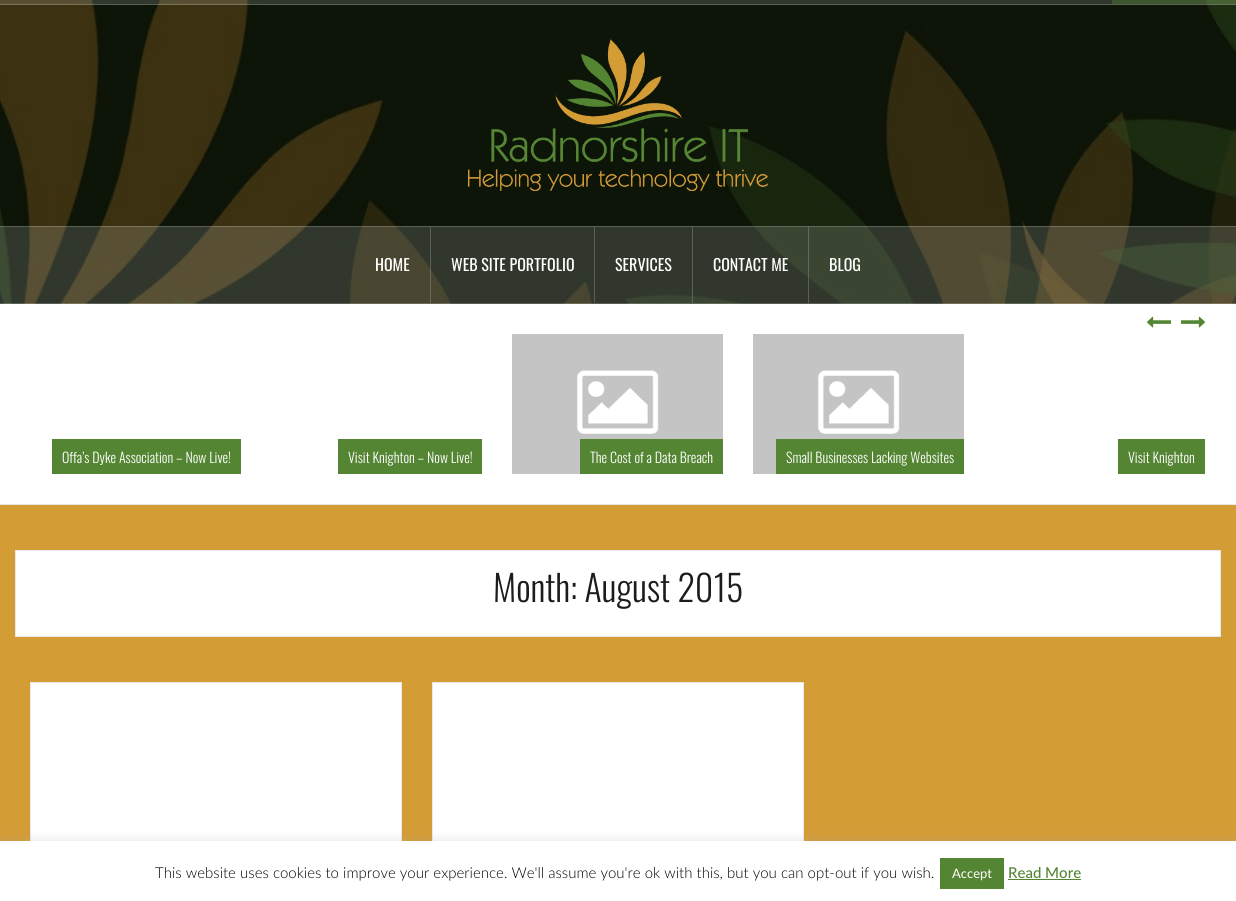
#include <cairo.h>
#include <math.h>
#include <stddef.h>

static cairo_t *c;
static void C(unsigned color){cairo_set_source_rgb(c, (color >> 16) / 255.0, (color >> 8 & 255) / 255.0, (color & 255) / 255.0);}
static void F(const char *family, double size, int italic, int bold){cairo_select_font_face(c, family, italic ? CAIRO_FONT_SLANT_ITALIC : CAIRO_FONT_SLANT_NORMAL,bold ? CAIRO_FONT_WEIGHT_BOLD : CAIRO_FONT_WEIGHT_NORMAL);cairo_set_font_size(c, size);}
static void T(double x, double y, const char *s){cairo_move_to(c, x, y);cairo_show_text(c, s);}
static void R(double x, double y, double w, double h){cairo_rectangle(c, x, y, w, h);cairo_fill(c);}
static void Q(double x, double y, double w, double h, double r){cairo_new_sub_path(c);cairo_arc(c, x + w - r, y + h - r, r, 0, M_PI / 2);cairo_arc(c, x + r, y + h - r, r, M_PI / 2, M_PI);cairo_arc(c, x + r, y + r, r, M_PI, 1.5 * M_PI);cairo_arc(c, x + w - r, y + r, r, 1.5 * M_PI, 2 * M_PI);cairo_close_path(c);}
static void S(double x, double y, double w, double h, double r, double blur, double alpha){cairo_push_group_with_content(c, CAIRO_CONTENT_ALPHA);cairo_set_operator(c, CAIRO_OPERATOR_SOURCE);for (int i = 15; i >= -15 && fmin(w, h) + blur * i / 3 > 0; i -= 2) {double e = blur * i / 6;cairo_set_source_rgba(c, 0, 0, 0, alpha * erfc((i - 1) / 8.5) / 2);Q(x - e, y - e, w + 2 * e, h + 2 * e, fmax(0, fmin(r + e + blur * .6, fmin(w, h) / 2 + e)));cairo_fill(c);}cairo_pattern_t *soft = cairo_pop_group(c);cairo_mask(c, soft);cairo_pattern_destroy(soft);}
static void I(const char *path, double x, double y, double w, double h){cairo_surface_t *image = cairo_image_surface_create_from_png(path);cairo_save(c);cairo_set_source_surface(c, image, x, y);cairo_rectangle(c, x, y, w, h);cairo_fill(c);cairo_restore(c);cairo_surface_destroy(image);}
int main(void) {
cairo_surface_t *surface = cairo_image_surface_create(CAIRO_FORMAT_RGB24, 1236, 901);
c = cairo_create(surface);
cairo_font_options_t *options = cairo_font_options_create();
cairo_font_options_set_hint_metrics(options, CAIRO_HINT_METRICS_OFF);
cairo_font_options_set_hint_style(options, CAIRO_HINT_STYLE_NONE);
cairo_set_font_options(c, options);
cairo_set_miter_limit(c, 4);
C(0xd49c35);
cairo_paint(c);
I("1.png",0,0,1236,304);
cairo_set_source_rgba(c,1,1,1,0.15);
R(0,0,1236,5);
cairo_set_source_rgba(c,1,1,1,0.2);
R(0,4,1236,1);
cairo_set_source_rgba(c,0.329,0.522,0.2,0.4);
R(1112,0,124,4);
I("2.png",468,39,300,152);
cairo_set_source_rgba(c,1,1,1,0.15);
R(0,226,1236,78);
cairo_set_source_rgba(c,1,1,1,0.2);
R(0,226,1236,1);
R(0,303,1236,1);
R(430,227,1,76);
F("Oswald",16,0,0);
C(0xffffff);
T(375,271,"HOME");
C(0x5a5f57);
R(594,227,1,76);
C(0xffffff);
T(451,271,"WEB SITE PORTFOLIO");
cairo_set_source_rgba(c,1,1,1,0.2);
R(692,227,1,76);
C(0xffffff);
T(615,271,"SERVICES");
cairo_set_source_rgba(c,1,1,1,0.2);
R(808,227,1,76);
C(0xffffff);
T(713,271,"CONTACT ME");
T(829,271,"BLOG");
R(0,304,1236,200);
C(0xe8e8e8);
R(0,504,1236,1);
I("3.png",1146,316,25,12);
I("4.png",1181,316,24,12);
C(0x548533);
R(52,439,189,35);
F("Oswald Light",14,0,0);
C(0xffffff);
T(62,463,"Offa’s Dyke Association – Now Live!");
C(0x548533);
R(338,439,144,35);
C(0xffffff);
T(348,463,"Visit Knighton – Now Live!");
I("5.png",512,334,211,140);
C(0x548533);
R(580,439,143,35);
C(0xffffff);
T(590,463,"The Cost of a Data Breach");
I("5.png",753,334,211,140);
C(0x548533);
R(776,439,188,35);
C(0xffffff);
T(786,463,"Small Businesses Lacking Websites");
C(0x548533);
R(1118,439,87,35);
C(0xffffff);
T(1128,463,"Visit Knighton");
cairo_rectangle(c,15.5,550.5,1205,86);
cairo_fill_preserve(c);
C(0xe8e8e8);
cairo_set_line_width(c,1);
cairo_stroke(c);
F("Oswald Light",36,0,0);
C(0x1c1c1c);
T(493,602,"Month: August 2015");
C(0xffffff);
R(31,683,370,158);
cairo_rectangle(c,30.5,682.5,371,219);
C(0xe8e8e8);
cairo_stroke(c);
C(0xffffff);
R(433,683,370,158);
cairo_rectangle(c,432.5,682.5,371,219);
C(0xe8e8e8);
cairo_stroke(c);
C(0xacabab);
S(0,840,1236,60,0,5,.3);
C(0xffffff);
R(0,841,1236,60);
F("Lato Light",15,0,0);
C(0x000000);
T(155,878,"This website uses cookies to improve your experience. We'll assume you're ok with this, but you can opt-out if you wish.");
C(0x548533);
R(940,858,64,31);
F("Lato",13,0,0);
C(0xffffff);
T(952,878,"Accept");
F("Lato Medium",15,0,0);
C(0x548533);
T(1008,878,"Read More");
R(1008,879,73,1);
cairo_surface_write_to_png(surface, "o.png");
cairo_font_options_destroy(options);
cairo_destroy(c);
cairo_surface_destroy(surface);
return 0;
}
